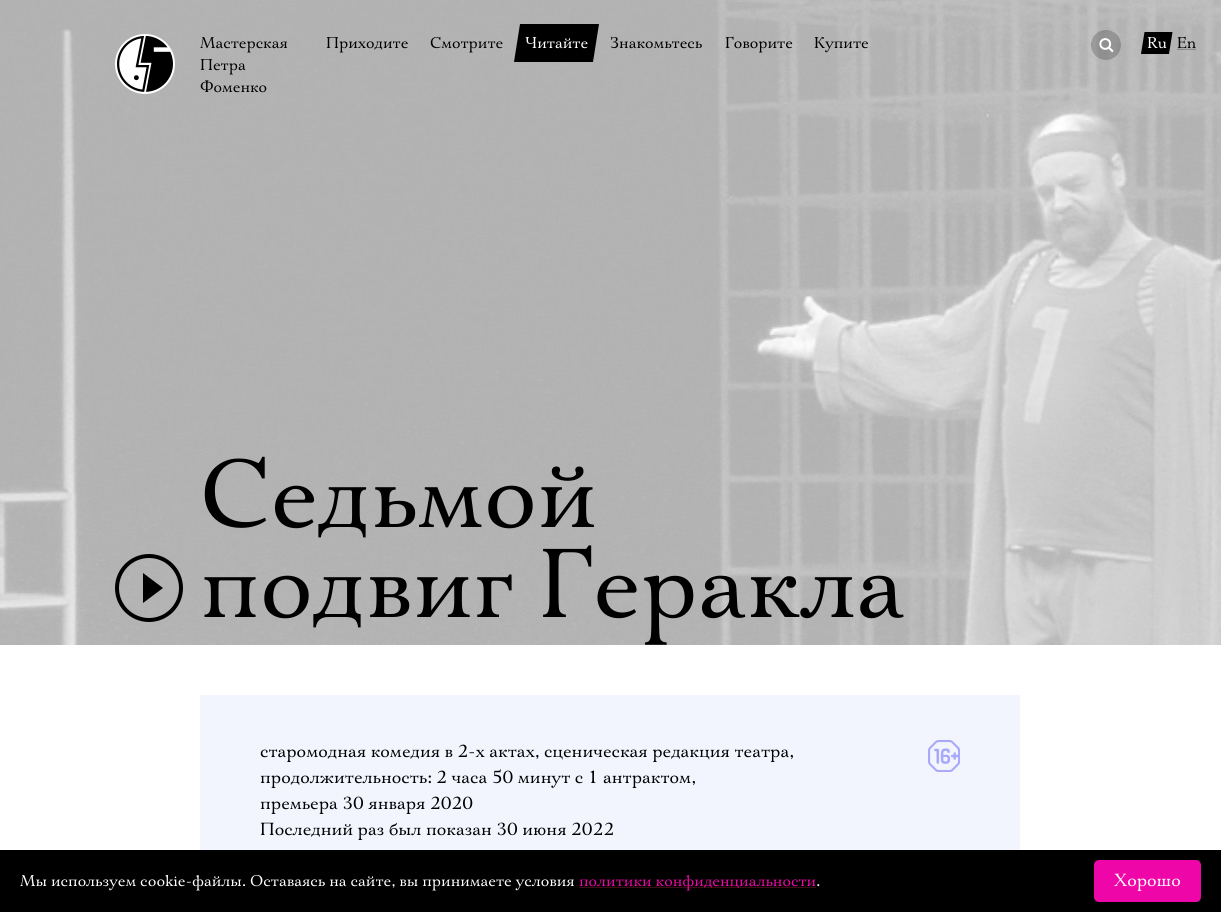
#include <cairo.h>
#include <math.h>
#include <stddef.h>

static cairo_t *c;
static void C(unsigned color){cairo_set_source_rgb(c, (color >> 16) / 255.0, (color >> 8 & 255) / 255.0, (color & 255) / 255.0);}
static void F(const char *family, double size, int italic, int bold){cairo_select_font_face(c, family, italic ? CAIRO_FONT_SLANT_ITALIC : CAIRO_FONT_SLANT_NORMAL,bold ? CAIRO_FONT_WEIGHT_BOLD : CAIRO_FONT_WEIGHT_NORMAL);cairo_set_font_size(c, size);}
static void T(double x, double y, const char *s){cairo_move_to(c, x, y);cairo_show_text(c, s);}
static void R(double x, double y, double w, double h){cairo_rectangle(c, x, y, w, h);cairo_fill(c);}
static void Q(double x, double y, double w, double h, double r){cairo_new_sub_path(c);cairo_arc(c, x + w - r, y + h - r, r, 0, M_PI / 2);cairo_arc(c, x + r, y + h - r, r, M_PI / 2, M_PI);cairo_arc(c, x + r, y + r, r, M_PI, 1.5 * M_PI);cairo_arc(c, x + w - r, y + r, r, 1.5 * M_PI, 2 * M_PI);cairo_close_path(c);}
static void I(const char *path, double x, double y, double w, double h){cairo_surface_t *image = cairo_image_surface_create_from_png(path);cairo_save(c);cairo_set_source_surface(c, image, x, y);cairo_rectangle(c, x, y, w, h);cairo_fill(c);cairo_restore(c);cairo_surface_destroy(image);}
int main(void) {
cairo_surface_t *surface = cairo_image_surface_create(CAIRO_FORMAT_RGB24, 1221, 912);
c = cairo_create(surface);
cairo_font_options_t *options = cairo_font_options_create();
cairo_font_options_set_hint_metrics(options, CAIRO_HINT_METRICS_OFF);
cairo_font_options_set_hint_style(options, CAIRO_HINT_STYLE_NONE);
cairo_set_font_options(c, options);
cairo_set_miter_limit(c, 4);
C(0xffffff);
cairo_paint(c);
I("1.png",0,0,1221,645);
I("2.png",115,34,60,60);
F("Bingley",16,0,0);
C(0x000000);
T(200,48,"Мастерская");
T(200,70,"Петра");
T(200,92,"Фоменко");
T(326,48,"Приходите");
T(430,48,"Смотрите");
cairo_new_path(c);
cairo_move_to(c,520,24);
cairo_line_to(c,599,24);
cairo_line_to(c,593,62);
cairo_line_to(c,514,62);
cairo_close_path(c);
cairo_fill(c);
C(0xffffff);
T(525,48,"Читайте");
C(0x000000);
T(610,48,"Знакомьтесь");
T(725,48,"Говорите");
T(814,48,"Купите");
cairo_set_source_rgba(c,0,0,0,0.2);
cairo_new_path(c);
cairo_arc(c,1106,45,15,0,2 * M_PI);
cairo_fill(c);
I("3.png",1099,38,15,15);
C(0x000000);
cairo_new_path(c);
cairo_move_to(c,1144.5,32);
cairo_line_to(c,1172.5,32);
cairo_line_to(c,1169,54);
cairo_line_to(c,1141,54);
cairo_close_path(c);
cairo_fill(c);
C(0xffffff);
T(1147,48,"Ru");
C(0x000000);
T(1177,48,"En");
I("4.png",1177,48,19,2);
cairo_arc(c,149,588,32,0,2 * M_PI);
cairo_set_line_width(c,4);
cairo_stroke(c);
cairo_new_path(c);
cairo_move_to(c,143,603);
cairo_line_to(c,143,573);
cairo_line_to(c,163,588);
cairo_close_path(c);
cairo_fill(c);
F("Bingley",100,0,0);
T(200,527,"Седьмой");
T(200,617,"подвиг Геракла");
C(0xf2f5fe);
R(200,695,820,155);
F("Bingley",18,0,0);
C(0x000000);
T(260,757,"старомодная комедия в 2-х актах, сценическая редакция театра,");
T(260,783,"продолжительность: 2 часа 50 минут с 1 антрактом,");
T(260,809,"премьера 30 января 2020");
T(260,835,"Последний раз был показан 30 июня 2022");
I("5.png",928,740,32,32);
R(0,850,1221,62);
F("Bingley",16,0,0);
C(0xffffff);
T(20,886,"Мы используем cookie-файлы. Оставаясь на сайте, вы принимаете условия");
I("6.png",579,886,237,2);
C(0xef06a9);
T(579,886,"политики конфиденциальности");
C(0xffffff);
T(816,886,".");
C(0xef06a9);
Q(1094,860,107,42,5);
cairo_fill(c);
F("Bingley",18,0,0);
C(0xffffff);
T(1114,886,"Хорошо");
cairo_surface_write_to_png(surface, "o.png");
cairo_font_options_destroy(options);
cairo_destroy(c);
cairo_surface_destroy(surface);
return 0;
}
